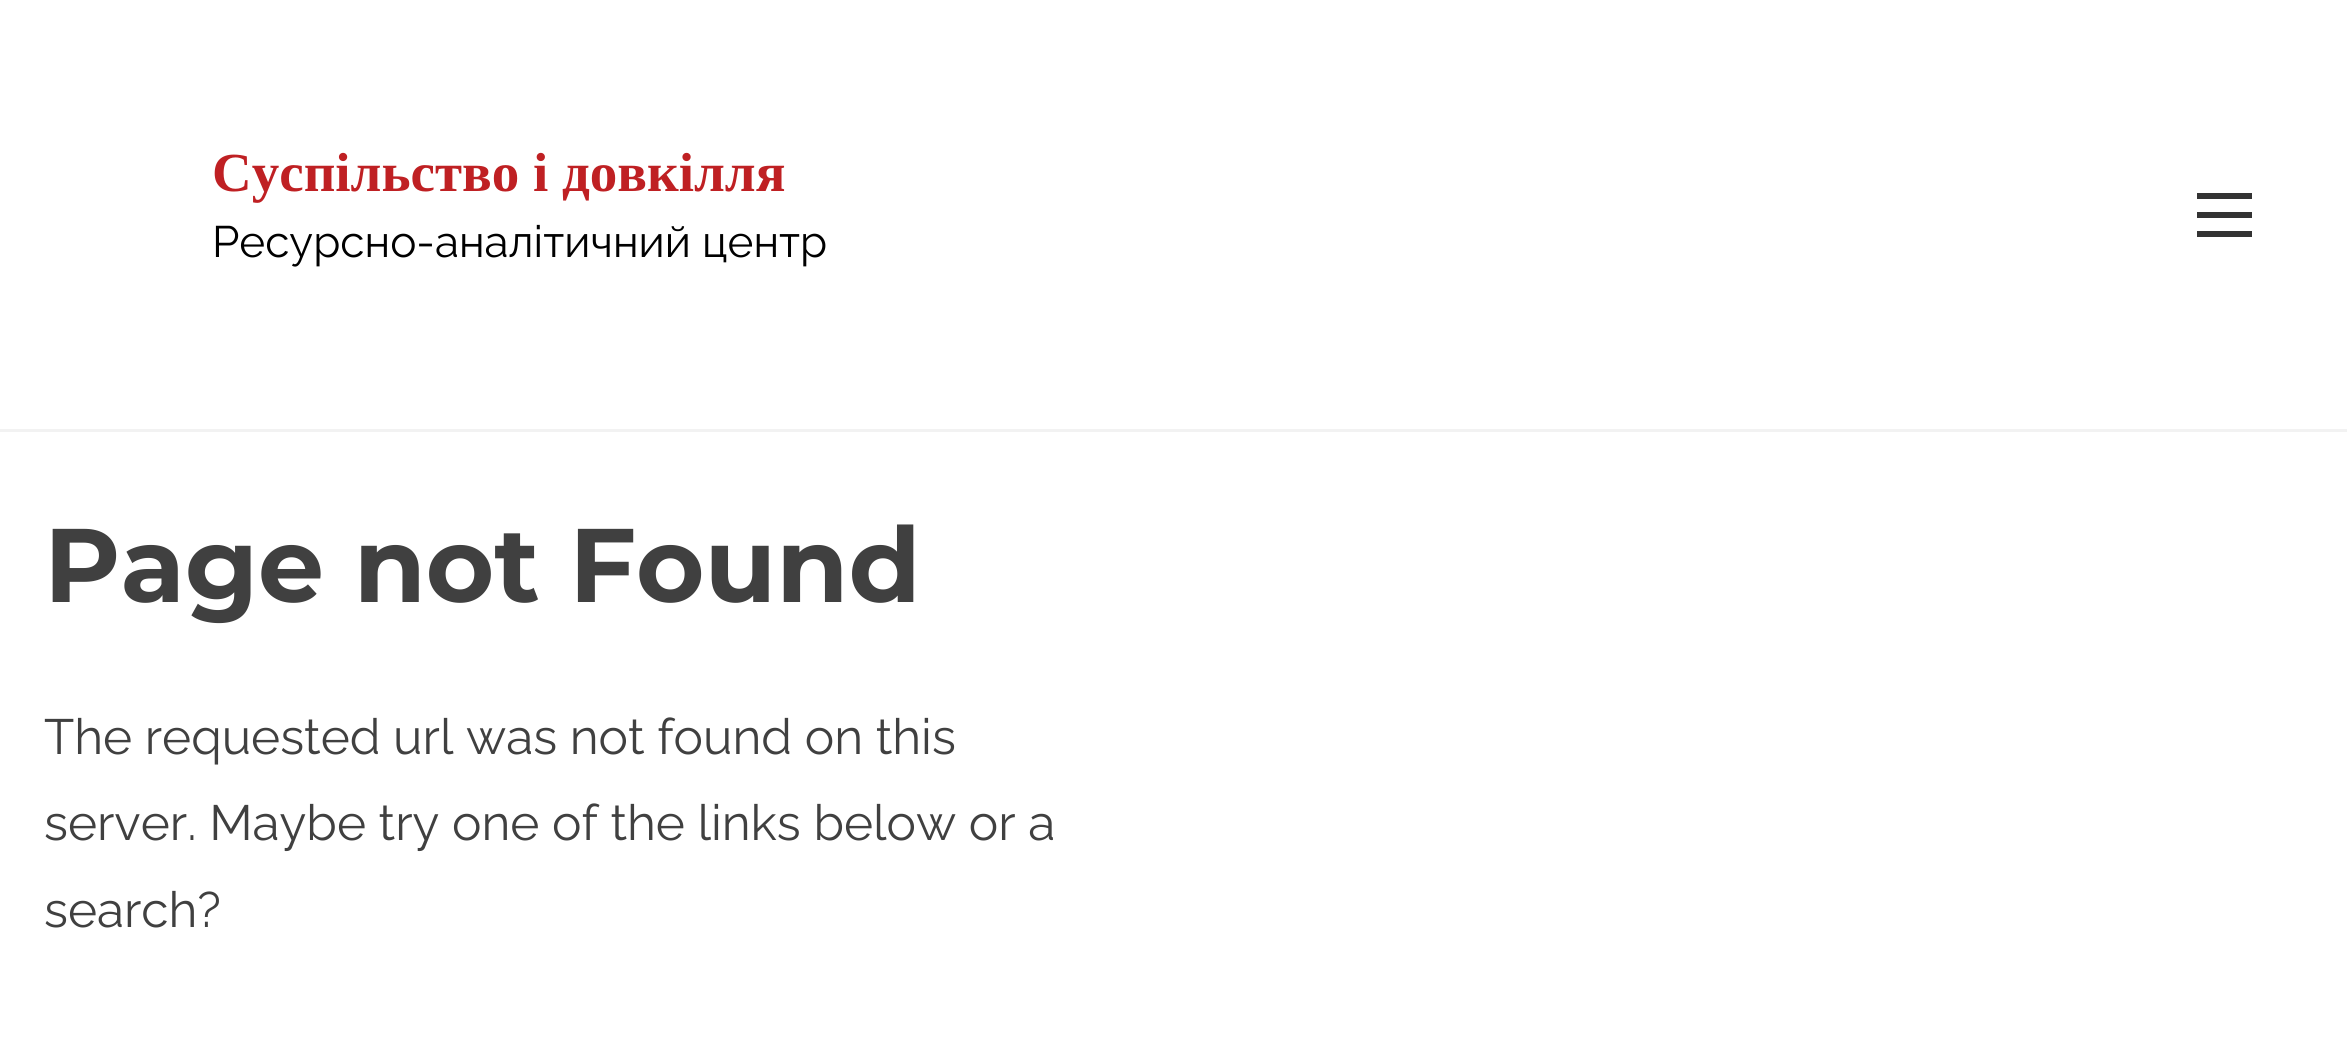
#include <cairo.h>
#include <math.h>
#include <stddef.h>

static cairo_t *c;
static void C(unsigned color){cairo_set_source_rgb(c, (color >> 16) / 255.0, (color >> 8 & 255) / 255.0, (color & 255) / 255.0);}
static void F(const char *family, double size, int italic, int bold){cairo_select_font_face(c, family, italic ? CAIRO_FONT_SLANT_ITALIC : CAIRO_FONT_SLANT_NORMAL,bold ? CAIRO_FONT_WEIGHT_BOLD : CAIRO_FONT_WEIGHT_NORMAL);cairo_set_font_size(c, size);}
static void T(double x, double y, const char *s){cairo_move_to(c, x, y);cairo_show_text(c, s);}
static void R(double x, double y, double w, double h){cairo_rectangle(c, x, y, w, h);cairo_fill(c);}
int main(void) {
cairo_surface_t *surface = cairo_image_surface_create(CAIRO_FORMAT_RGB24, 2347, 1060);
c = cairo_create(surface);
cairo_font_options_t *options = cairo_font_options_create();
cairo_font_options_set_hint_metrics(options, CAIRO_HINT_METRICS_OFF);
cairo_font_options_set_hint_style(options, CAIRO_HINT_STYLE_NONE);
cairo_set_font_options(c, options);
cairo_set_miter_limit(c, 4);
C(0xffffff);
cairo_paint(c);
C(0xf2f2f2);
R(0,429,2347,3);
F("Liberation Serif",55,0,1);
C(0xbf2023);
T(212,191,"Суспільство і довкілля");
F("Raleway",44,0,0);
C(0x000000);
T(212,257,"Ресурсно-аналітичний центр");
C(0x333333);
R(2197,231,55,6);
R(2197,193,55,6);
R(2197,212,55,6);
F("Montserrat",104.5,0,1);
C(0x404040);
T(44,602,"Page not Found");
F("Raleway",49.5,0,0);
T(44,754,"The requested url was not found on this");
T(44,840,"server. Maybe try one of the links below or a");
T(44,927,"search?");
cairo_surface_write_to_png(surface, "o.png");
cairo_font_options_destroy(options);
cairo_destroy(c);
cairo_surface_destroy(surface);
return 0;
}
